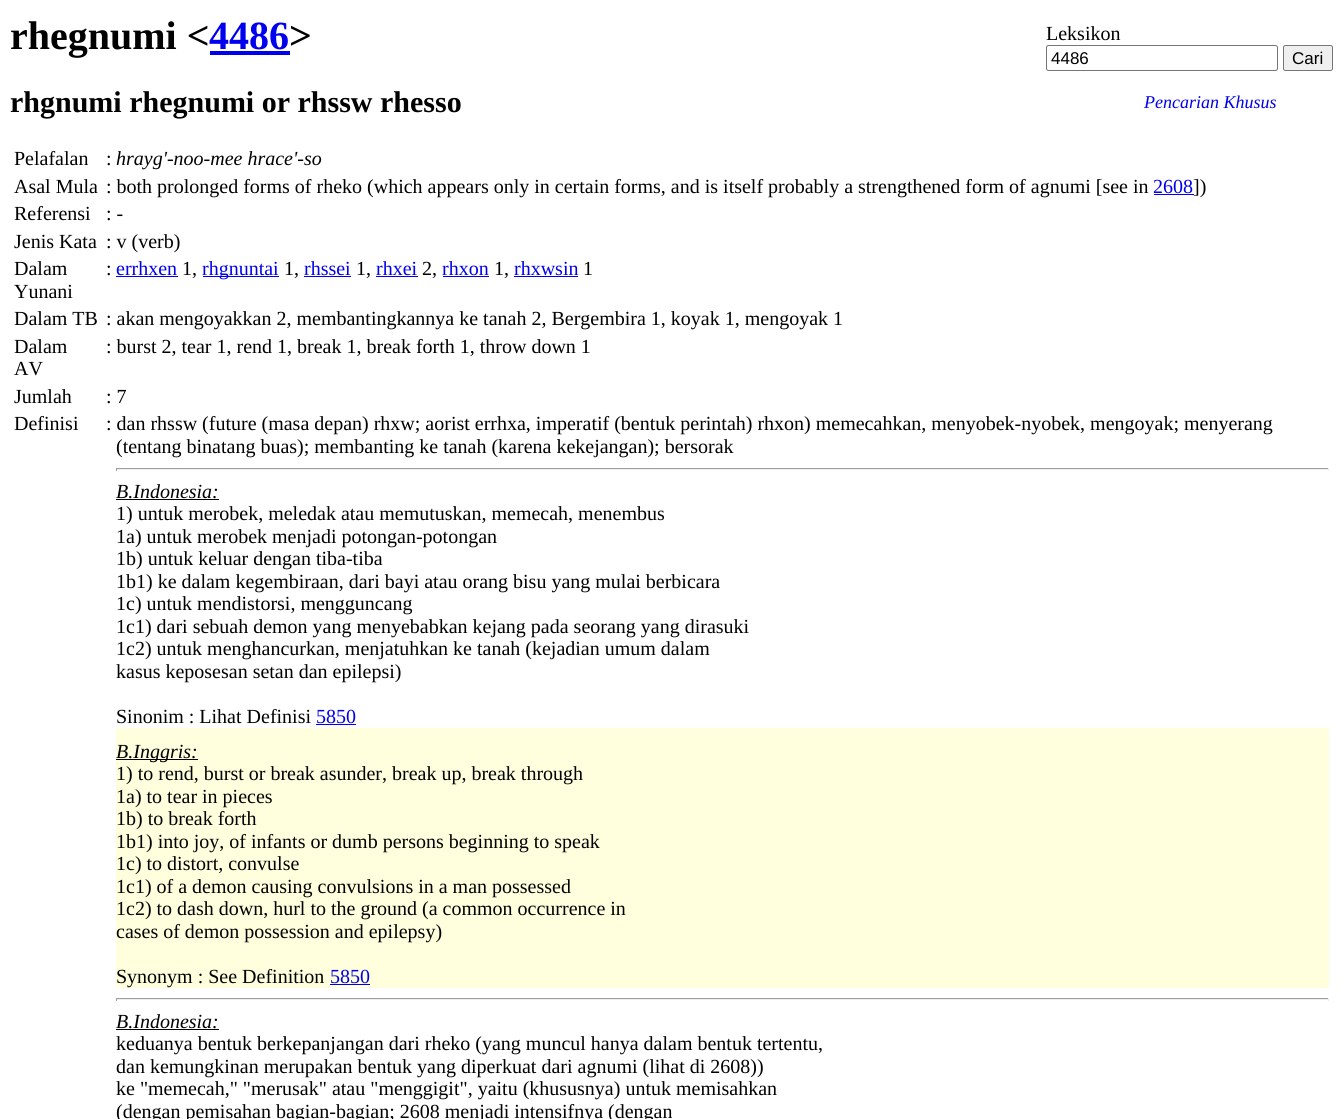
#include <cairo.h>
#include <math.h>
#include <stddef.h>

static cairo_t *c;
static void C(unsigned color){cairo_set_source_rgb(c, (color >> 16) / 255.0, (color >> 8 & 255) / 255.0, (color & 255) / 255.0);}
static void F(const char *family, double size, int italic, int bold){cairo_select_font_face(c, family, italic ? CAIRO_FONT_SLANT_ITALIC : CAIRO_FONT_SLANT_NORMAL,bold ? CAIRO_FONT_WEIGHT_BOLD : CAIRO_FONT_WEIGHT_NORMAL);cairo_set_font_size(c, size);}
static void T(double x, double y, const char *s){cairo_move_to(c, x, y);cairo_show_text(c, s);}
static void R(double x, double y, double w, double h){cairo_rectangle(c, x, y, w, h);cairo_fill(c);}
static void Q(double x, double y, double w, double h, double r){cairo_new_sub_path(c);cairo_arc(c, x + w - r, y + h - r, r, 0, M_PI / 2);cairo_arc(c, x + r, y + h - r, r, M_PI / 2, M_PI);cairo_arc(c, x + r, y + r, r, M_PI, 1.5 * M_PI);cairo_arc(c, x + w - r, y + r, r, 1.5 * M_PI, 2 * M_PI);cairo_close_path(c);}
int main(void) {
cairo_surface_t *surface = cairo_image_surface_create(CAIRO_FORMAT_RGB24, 1342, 1119);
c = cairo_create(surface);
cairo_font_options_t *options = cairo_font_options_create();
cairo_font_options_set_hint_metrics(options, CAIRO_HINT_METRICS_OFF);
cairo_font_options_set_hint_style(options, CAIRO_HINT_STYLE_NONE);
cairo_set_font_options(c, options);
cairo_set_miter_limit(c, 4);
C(0xffffff);
cairo_paint(c);
F("Liberation Serif",40,0,1);
C(0x000000);
T(10,49,"rhegnumi <");
C(0x0000ee);
T(209,49,"4486");
R(210,51,80,4);
C(0x000000);
T(289,49,">");
F("Liberation Serif",20,0,0);
T(1046,40,"Leksikon");
Q(1046.5,45.5,231,25,2);
C(0x767676);
cairo_set_line_width(c,1);
cairo_stroke(c);
F("Liberation Sans",17,0,0);
C(0x000000);
T(1051,64,"4486");
C(0xefefef);
Q(1283.5,45.5,49,25,2);
cairo_fill_preserve(c);
C(0x767676);
cairo_stroke(c);
C(0x000000);
T(1292,64,"Cari");
F("Liberation Serif",18,1,0);
C(0x0000ee);
T(1144,108,"Pencarian Khusus");
F("Liberation Serif",30,0,1);
C(0x000000);
T(10,112,"rhgnumi rhegnumi or rhssw rhesso");
F("Liberation Serif",20,0,0);
T(14,165,"Pelafalan");
T(106,165,":");
F("Liberation Serif",20,1,0);
T(116,165,"hrayg'-noo-mee hrace'-so");
F("Liberation Serif",20,0,0);
T(14,193,"Asal Mula");
T(106,193,": both prolonged forms of rheko (which appears only in certain forms, and is itself probably a strengthened form of agnumi [see in");
C(0x0000ee);
T(1153,193,"2608");
R(1154,194,40,1);
C(0x000000);
T(1193,193,"])");
T(14,220,"Referensi");
T(106,220,": -");
T(14,248,"Jenis Kata");
T(106,248,": v (verb)");
T(14,275,"Dalam");
T(14,298,"Yunani");
T(106,275,":");
C(0x0000ee);
T(116,275,"errhxen");
R(116,276,62,1);
C(0x000000);
T(182,275,"1,");
C(0x0000ee);
R(203,276,76,1);
T(202,275,"rhgnuntai");
C(0x000000);
T(284,275,"1,");
C(0x0000ee);
T(304,275,"rhssei");
R(304,276,47,1);
C(0x000000);
T(356,275,"1,");
C(0x0000ee);
T(376,275,"rhxei");
R(376,276,42,1);
C(0x000000);
T(422,275,"2,");
C(0x0000ee);
T(442,275,"rhxon");
R(443,276,46,1);
C(0x000000);
T(494,275,"1,");
C(0x0000ee);
T(514,275,"rhxwsin");
R(514,276,64,1);
C(0x000000);
T(583,275,"1");
T(14,325,"Dalam TB");
T(106,325,": akan mengoyakkan 2, membantingkannya ke tanah 2, Bergembira 1, koyak 1, mengoyak 1");
T(14,353,"Dalam");
T(14,375,"AV");
T(106,353,": burst 2, tear 1, rend 1, break 1, break forth 1, throw down 1");
T(14,403,"Jumlah");
T(106,403,": 7");
T(14,430,"Definisi");
T(106,430,": dan rhssw (future (masa depan) rhxw; aorist errhxa, imperatif (bentuk perintah) rhxon) memecahkan, menyobek-nyobek, mengoyak; menyerang");
T(116,453,"(tentang binatang buas); membanting ke tanah (karena kekejangan); bersorak");
C(0x9f9f9f);
R(116,468,1213,1);
C(0xeeeeee);
R(1328,468,1,3);
R(116,469,1213,1);
C(0x9f9f9f);
R(116,468,1,3);
F("Liberation Serif",20,1,0);
C(0x000000);
T(116,498,"B.Indonesia:");
R(116,499,103,1);
F("Liberation Serif",20,0,0);
T(116,520,"1) untuk merobek, meledak atau memutuskan, memecah, menembus");
T(116,543,"1a) untuk merobek menjadi potongan-potongan");
T(116,565,"1b) untuk keluar dengan tiba-tiba");
T(116,588,"1b1) ke dalam kegembiraan, dari bayi atau orang bisu yang mulai berbicara");
T(116,610,"1c) untuk mendistorsi, mengguncang");
T(116,633,"1c1) dari sebuah demon yang menyebabkan kejang pada seorang yang dirasuki");
T(116,655,"1c2) untuk menghancurkan, menjatuhkan ke tanah (kejadian umum dalam");
T(116,678,"kasus keposesan setan dan epilepsi)");
T(116,723,"Sinonim : Lihat Definisi");
C(0x0000ee);
T(316,723,"5850");
R(316,724,40,1);
C(0xffffdd);
R(116,728,1213,260);
C(0x000000);
R(116,759,82,1);
F("Liberation Serif",20,1,0);
T(116,758,"B.Inggris:");
F("Liberation Serif",20,0,0);
T(116,780,"1) to rend, burst or break asunder, break up, break through");
T(116,803,"1a) to tear in pieces");
T(116,825,"1b) to break forth");
T(116,848,"1b1) into joy, of infants or dumb persons beginning to speak");
T(116,870,"1c) to distort, convulse");
T(116,893,"1c1) of a demon causing convulsions in a man possessed");
T(116,915,"1c2) to dash down, hurl to the ground (a common occurrence in");
T(116,938,"cases of demon possession and epilepsy)");
T(116,983,"Synonym : See Definition");
C(0x0000ee);
T(330,983,"5850");
R(330,984,40,1);
C(0x9f9f9f);
R(116,998,1213,1);
C(0xeeeeee);
R(1328,998,1,3);
R(116,999,1213,1);
C(0x9f9f9f);
R(116,998,1,3);
F("Liberation Serif",20,1,0);
C(0x000000);
T(116,1028,"B.Indonesia:");
R(116,1029,103,1);
F("Liberation Serif",20,0,0);
T(116,1050,"keduanya bentuk berkepanjangan dari rheko (yang muncul hanya dalam bentuk tertentu,");
T(116,1073,"dan kemungkinan merupakan bentuk yang diperkuat dari agnumi (lihat di 2608))");
T(116,1095,"ke \"memecah,\" \"merusak\" atau \"menggigit\", yaitu (khususnya) untuk memisahkan");
T(116,1118,"(dengan pemisahan bagian-bagian; 2608 menjadi intensifnya (dengan");
cairo_surface_write_to_png(surface, "o.png");
cairo_font_options_destroy(options);
cairo_destroy(c);
cairo_surface_destroy(surface);
return 0;
}
